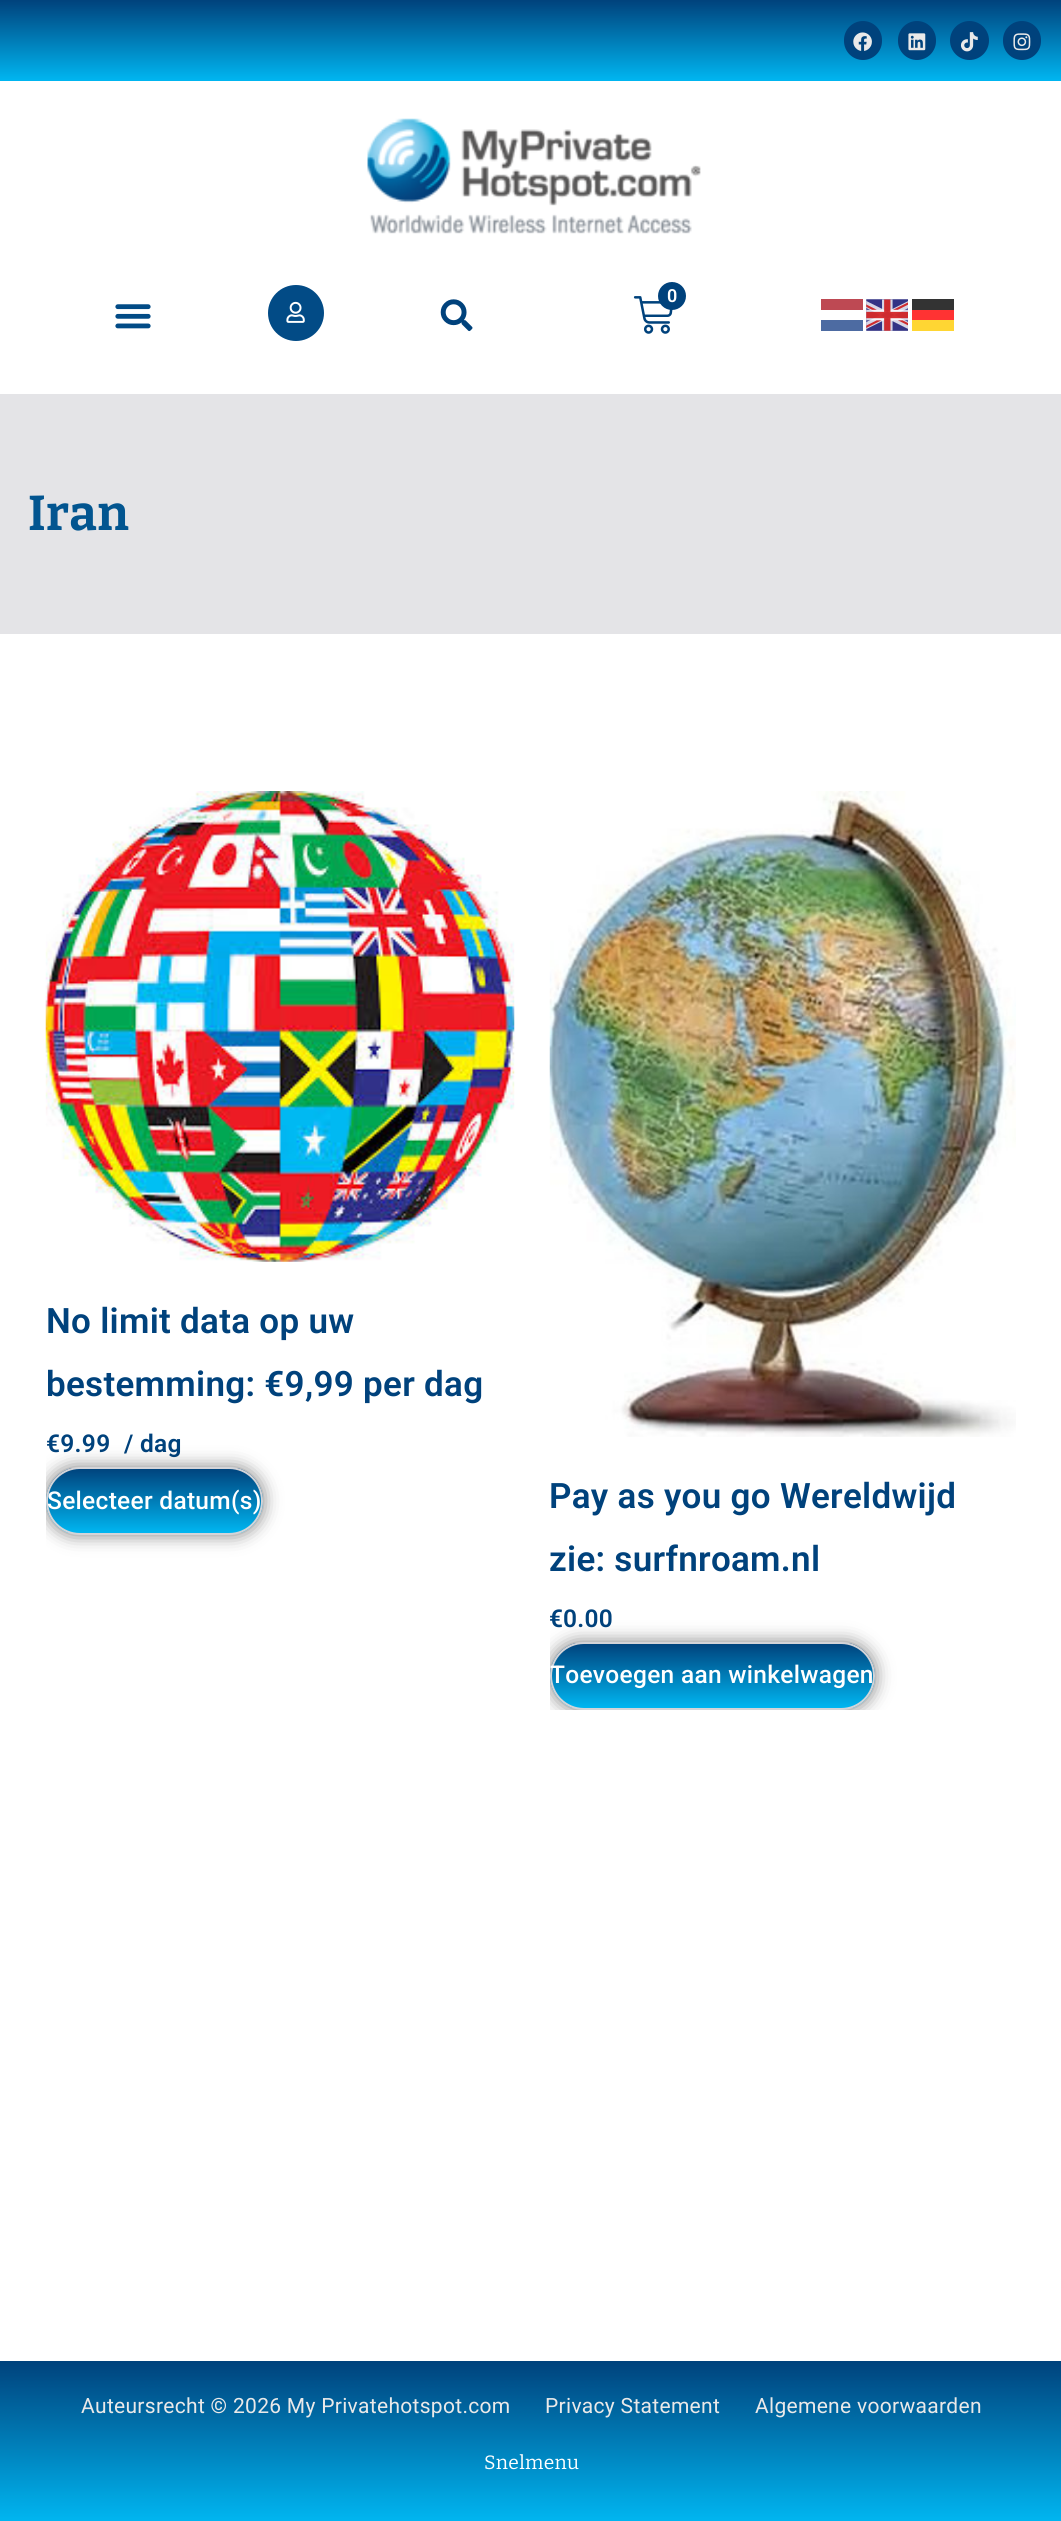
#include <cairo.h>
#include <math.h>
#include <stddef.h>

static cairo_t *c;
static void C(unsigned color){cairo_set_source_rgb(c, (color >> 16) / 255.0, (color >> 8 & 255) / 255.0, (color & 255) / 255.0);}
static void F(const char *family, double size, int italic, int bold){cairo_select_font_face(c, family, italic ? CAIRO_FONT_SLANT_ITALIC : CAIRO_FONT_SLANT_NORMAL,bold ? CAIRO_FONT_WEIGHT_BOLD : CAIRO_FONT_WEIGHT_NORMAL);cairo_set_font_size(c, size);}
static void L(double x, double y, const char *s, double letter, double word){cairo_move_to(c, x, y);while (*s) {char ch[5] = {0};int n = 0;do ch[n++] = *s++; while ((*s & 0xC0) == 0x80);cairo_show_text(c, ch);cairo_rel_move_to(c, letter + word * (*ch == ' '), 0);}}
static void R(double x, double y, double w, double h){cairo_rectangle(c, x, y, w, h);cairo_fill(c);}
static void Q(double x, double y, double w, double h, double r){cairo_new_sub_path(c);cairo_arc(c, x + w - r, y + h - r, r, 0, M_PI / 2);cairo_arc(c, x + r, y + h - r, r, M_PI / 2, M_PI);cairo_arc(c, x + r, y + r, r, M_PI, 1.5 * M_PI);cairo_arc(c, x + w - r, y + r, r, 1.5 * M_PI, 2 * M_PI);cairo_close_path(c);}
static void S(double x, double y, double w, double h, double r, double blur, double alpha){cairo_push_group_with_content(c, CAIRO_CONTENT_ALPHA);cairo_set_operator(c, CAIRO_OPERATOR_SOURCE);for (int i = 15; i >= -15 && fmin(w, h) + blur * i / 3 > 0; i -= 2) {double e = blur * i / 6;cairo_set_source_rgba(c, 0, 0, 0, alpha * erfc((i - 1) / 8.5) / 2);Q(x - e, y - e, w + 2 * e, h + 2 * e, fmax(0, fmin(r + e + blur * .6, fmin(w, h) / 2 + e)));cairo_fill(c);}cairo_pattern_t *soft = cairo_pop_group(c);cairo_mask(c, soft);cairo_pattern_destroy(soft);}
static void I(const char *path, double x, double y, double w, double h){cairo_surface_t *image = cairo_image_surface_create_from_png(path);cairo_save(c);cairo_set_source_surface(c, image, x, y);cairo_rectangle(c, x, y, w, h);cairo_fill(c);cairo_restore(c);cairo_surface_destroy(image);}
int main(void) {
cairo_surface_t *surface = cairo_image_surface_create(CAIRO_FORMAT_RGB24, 1061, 2521);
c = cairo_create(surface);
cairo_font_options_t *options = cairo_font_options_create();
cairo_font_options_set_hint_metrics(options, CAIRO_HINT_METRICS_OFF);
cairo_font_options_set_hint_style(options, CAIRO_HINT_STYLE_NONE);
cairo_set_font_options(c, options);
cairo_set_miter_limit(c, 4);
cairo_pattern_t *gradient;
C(0xe4e4e7);
cairo_paint(c);
gradient = cairo_pattern_create_linear(531,0,531,81);
cairo_pattern_add_color_stop_rgba(gradient,0,0,0.259,0.486,1);
cairo_pattern_add_color_stop_rgba(gradient,1,0,0.714,0.945,1);
cairo_set_source(c,gradient);
cairo_pattern_destroy(gradient);
R(0,0,1061,81);
C(0x00427c);
Q(844,21,38,39,19);
cairo_fill(c);
I("1.png",853,32,19,19);
Q(898,21,38,39,19);
cairo_fill(c);
I("2.png",908,33,18,18);
cairo_arc(c,969.5,40.5,19.5,0,2 * M_PI);
cairo_fill(c);
I("3.png",960,32,18,20);
Q(1003,21,38,39,19);
cairo_fill(c);
I("4.png",1013,33,18,18);
C(0xffffff);
R(0,81,1061,313);
I("5.png",367,118,334,116);
C(0x024b86);
cairo_arc(c,296,313,28,0,2 * M_PI);
cairo_fill(c);
I("6.png",286,301,19,22);
I("7.png",633,296,40,38);
C(0x00427c);
cairo_arc(c,672,296,14,0,2 * M_PI);
cairo_fill(c);
F("Roboto SemiBold",18,0,0);
C(0xffffff);
L(667,302,"0",.3,0);
I("8.png",115,304,36,25);
I("9.png",440,299,33,33);
C(0xbe4953);
R(821,299,42,11);
I("10.png",866,299,42,32);
C(0x333333);
R(912,299,42,11);
C(0xff3333);
R(912,310,42,10);
C(0x4d6ba2);
R(821,320,42,11);
C(0xffd633);
R(912,320,42,11);
F("Bitter",49,0,1);
C(0x025590);
L(28,530,"Iran",.3,0);
C(0xffffff);
R(0,634,1061,1727);
I("11.png",45,791,470,471);
F("Roboto SemiBold",35,0,0);
C(0x00427c);
L(46,1333,"No limit data op uw",.3,0);
L(46,1396,"bestemming: €9,99 per dag",.3,0);
F("Roboto SemiBold",24.5,0,0);
L(46,1452,"€9.99",.3,0);
L(124,1452,"/ dag",.3,0);
cairo_save(c);
cairo_rectangle(c,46,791,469,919);
cairo_clip(c);
C(0x000000);
S(46,1467,217,68,34,9,.5);
cairo_restore(c);
cairo_save(c);
Q(46,1467,217,68,34);
cairo_clip(c);
gradient = cairo_pattern_create_linear(154,1468,154,1533);
cairo_pattern_add_color_stop_rgba(gradient,0,0,0.259,0.486,1);
cairo_pattern_add_color_stop_rgba(gradient,1,0,0.714,0.945,1);
cairo_set_source(c,gradient);
cairo_pattern_destroy(gradient);
R(46,1468,217,65);
cairo_restore(c);
Q(47,1468,215,66,33);
C(0xd4d4d8);
cairo_stroke(c);
F("Roboto Medium",24.5,0,0);
C(0xffffff);
L(47,1509,"Selecteer datum(s)",.3,0);
I("12.png",549,791,467,646);
F("Roboto SemiBold",35,0,0);
C(0x00427c);
L(549,1508,"Pay as you go Wereldwijd",.3,0);
L(549,1571,"zie: surfnroam.nl",.3,0);
cairo_save(c);
cairo_rectangle(c,550,791,467,919);
cairo_clip(c);
F("Roboto SemiBold",24.5,0,0);
L(549,1627,"€",.3,0);
cairo_restore(c);
F("Roboto SemiBold",24.5,0,0);
L(563,1627,"0.00",.3,0);
cairo_save(c);
cairo_rectangle(c,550,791,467,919);
cairo_clip(c);
C(0x000000);
S(550,1642,325,68,34,9,.5);
cairo_restore(c);
cairo_save(c);
Q(550,1642,325,68,34);
cairo_clip(c);
gradient = cairo_pattern_create_linear(712,1643,712,1708);
cairo_pattern_add_color_stop_rgba(gradient,0,0,0.259,0.486,1);
cairo_pattern_add_color_stop_rgba(gradient,1,0,0.714,0.945,1);
cairo_set_source(c,gradient);
cairo_pattern_destroy(gradient);
R(550,1643,325,65);
cairo_restore(c);
Q(551,1643,323,66,33);
C(0xd4d4d8);
cairo_stroke(c);
F("Roboto Medium",24.5,0,0);
C(0xffffff);
L(550,1683,"Toevoegen aan winkelwagen",.3,0);
gradient = cairo_pattern_create_linear(531,2361,531,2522);
cairo_pattern_add_color_stop_rgba(gradient,0,0,0.259,0.486,1);
cairo_pattern_add_color_stop_rgba(gradient,1,0,0.714,0.945,1);
cairo_set_source(c,gradient);
cairo_pattern_destroy(gradient);
R(0,2361,1061,160);
F("Roboto",21,0,0);
C(0xeae9e9);
L(81,2413,"Auteursrecht © 2026 My Privatehotspot.com",.3,0);
L(545,2413,"Privacy Statement",.3,0);
L(755,2413,"Algemene voorwaarden",.3,0);
F("Bitter",19.25,0,0);
C(0xffffff);
L(484,2469,"Snelmenu",.3,0);
cairo_surface_write_to_png(surface, "o.png");
cairo_font_options_destroy(options);
cairo_destroy(c);
cairo_surface_destroy(surface);
return 0;
}
